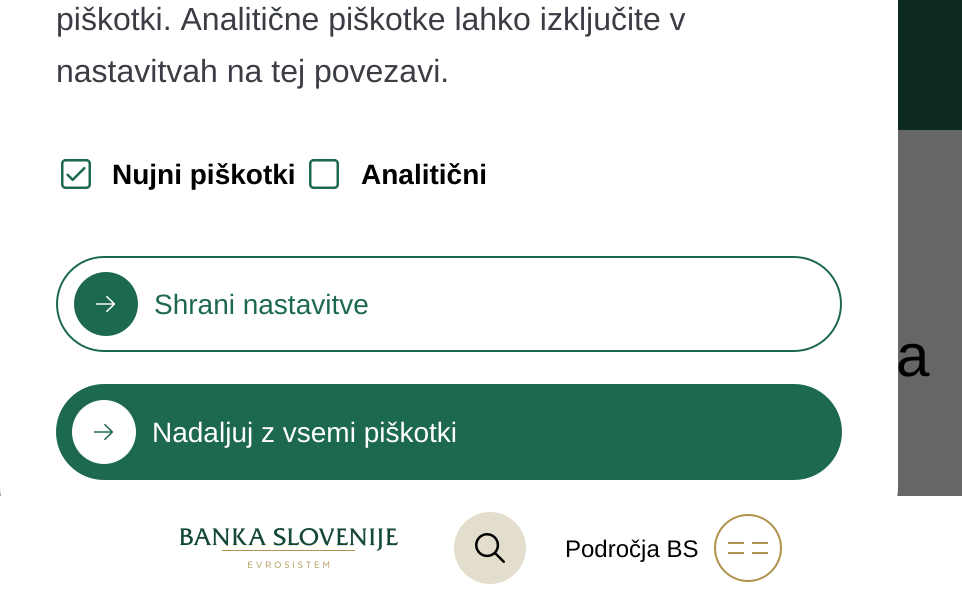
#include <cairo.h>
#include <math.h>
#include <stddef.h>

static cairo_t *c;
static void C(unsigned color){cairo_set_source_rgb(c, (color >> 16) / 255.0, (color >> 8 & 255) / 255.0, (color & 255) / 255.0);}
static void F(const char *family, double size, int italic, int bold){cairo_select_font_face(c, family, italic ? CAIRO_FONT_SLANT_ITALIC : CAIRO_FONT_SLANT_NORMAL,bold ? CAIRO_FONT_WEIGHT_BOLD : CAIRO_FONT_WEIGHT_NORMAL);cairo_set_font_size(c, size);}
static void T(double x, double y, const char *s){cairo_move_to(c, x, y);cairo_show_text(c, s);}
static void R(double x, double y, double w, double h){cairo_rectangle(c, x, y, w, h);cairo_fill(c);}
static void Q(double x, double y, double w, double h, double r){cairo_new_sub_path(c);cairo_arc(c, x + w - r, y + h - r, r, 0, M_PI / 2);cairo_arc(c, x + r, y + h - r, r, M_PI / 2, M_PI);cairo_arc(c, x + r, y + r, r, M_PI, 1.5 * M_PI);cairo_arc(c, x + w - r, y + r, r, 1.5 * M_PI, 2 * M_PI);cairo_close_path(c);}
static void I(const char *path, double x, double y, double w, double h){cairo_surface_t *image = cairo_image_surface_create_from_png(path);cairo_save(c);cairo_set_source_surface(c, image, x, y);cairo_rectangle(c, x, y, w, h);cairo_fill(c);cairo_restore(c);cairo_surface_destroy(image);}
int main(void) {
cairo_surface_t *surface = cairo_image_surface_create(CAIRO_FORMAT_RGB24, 962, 600);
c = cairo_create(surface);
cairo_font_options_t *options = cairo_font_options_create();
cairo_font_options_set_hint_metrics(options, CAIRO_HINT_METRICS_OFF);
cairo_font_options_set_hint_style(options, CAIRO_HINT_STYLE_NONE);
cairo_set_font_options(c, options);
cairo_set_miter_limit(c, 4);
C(0x666666);
cairo_paint(c);
C(0xffffff);
Q(0,-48,898,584,48);
cairo_fill(c);
F("Liberation Sans",32,0,0);
C(0x3a3d43);
T(56,30,"piškotki. Analitične piškotke lahko izključite v");
T(56,82,"nastavitvah na tej povezavi.");
I("1.png",61,159,30,30);
F("Liberation Sans",28,0,1);
C(0x000000);
T(112,184,"Nujni piškotki");
I("2.png",309,159,30,30);
T(361,184,"Analitični");
Q(57,257,784,94,47);
C(0x1d694f);
cairo_stroke(c);
cairo_arc(c,106,304,32,0,2 * M_PI);
cairo_fill(c);
I("3.png",96,295,20,18);
F("Liberation Sans",28,0,0);
T(154,314,"Shrani nastavitve");
Q(56,384,786,96,48);
cairo_fill(c);
C(0xffffff);
cairo_arc(c,104,432,32,0,2 * M_PI);
cairo_fill(c);
I("4.png",94,423,20,18);
T(152,442,"Nadaljuj z vsemi piškotki");
C(0x0c2a20);
R(898,0,64,130);
F("Liberation Sans",60,0,0);
C(0x000000);
T(896,376,"a");
C(0xffffff);
R(0,496,962,104);
I("5.png",180,528,218,40);
C(0xe3ddce);
cairo_arc(c,490,548,36,0,2 * M_PI);
cairo_fill(c);
I("6.png",475,533,30,30);
F("Liberation Sans",24,0,0);
C(0x000000);
T(565,557,"Področja BS");
cairo_new_path(c);
cairo_arc(c,748,548,33,0,2 * M_PI);
C(0xae924d);
cairo_stroke(c);
R(728,542,40,2);
C(0xffffff);
R(744,542,8,2);
C(0xae924d);
R(728,552,40,2);
C(0xffffff);
R(744,552,8,2);
cairo_surface_write_to_png(surface, "o.png");
cairo_font_options_destroy(options);
cairo_destroy(c);
cairo_surface_destroy(surface);
return 0;
}
